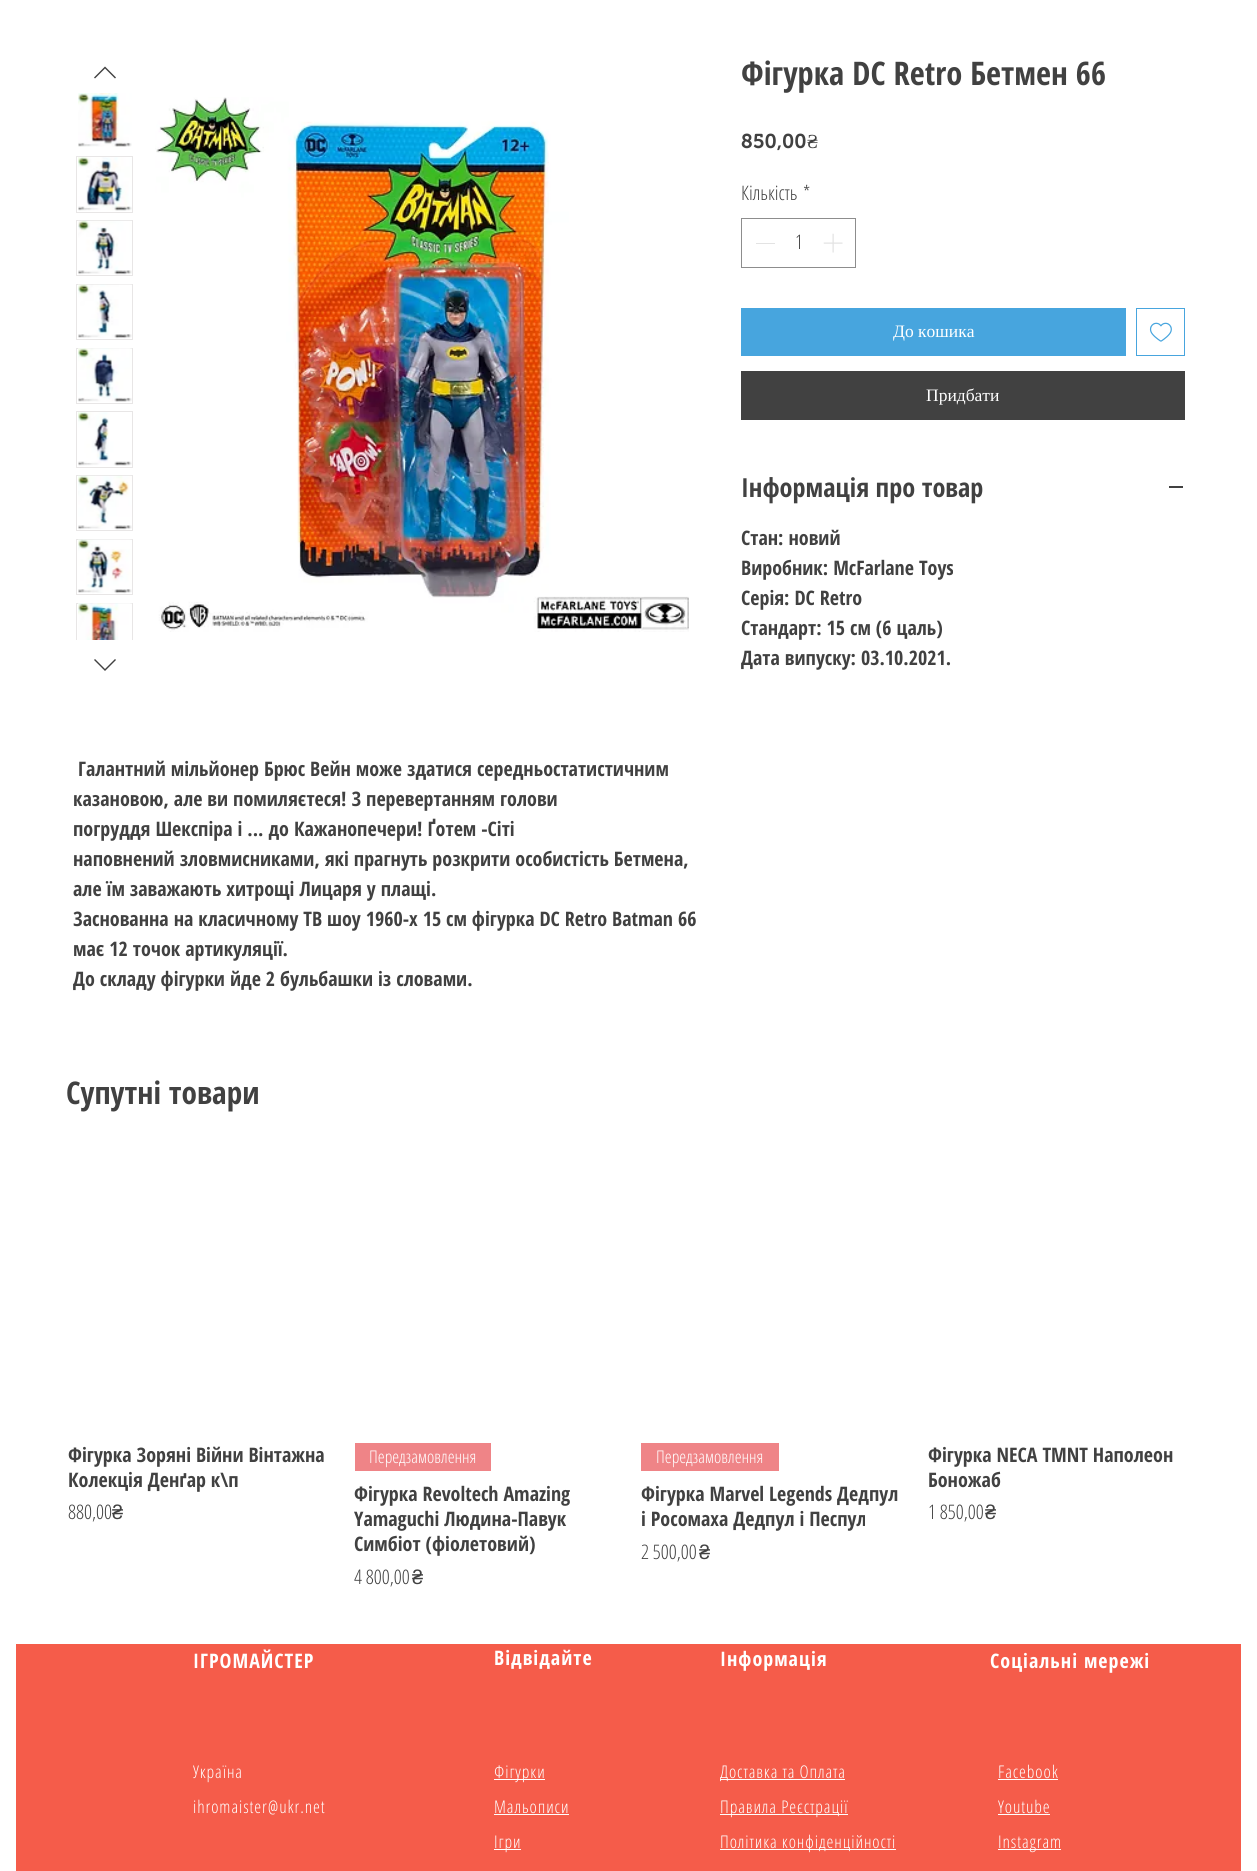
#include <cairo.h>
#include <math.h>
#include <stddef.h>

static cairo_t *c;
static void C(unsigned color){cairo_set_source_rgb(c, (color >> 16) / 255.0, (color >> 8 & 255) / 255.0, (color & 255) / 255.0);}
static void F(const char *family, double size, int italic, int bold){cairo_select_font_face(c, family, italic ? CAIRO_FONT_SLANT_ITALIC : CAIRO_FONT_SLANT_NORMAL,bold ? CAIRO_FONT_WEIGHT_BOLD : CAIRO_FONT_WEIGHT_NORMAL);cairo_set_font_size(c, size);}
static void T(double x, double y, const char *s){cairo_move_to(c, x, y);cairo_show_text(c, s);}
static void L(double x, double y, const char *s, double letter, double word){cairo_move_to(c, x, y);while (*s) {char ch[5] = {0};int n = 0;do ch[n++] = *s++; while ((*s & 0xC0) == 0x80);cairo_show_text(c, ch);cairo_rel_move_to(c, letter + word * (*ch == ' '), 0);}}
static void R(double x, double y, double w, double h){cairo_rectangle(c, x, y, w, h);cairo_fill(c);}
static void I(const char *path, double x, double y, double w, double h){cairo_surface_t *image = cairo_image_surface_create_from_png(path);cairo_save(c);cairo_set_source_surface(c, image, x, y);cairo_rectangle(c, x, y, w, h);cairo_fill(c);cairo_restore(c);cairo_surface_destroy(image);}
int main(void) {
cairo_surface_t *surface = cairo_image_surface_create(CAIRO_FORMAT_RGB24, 1257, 1871);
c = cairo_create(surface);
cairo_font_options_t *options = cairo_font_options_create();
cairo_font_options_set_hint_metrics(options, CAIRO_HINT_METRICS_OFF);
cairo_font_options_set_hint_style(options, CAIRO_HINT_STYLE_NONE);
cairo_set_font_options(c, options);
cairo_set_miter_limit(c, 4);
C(0xffffff);
cairo_paint(c);
F("Open Sans Condensed",32.5,0,1);
C(0x414141);
T(741,85,"Фігурка DC Retro Бетмен 66");
F("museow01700 SemiBold",20,0,0);
T(741,148,"850,00");
F("Liberation Serif",20,0,0);
T(807,148,"₴");
F("Open Sans Condensed Light",20,0,0);
T(741,200,"Кількість");
T(803,200,"*");
cairo_rectangle(c,741.5,218.5,114,49);
C(0x8d8d8d);
cairo_set_line_width(c,1);
cairo_stroke(c);
C(0xe3e3e3);
R(756,243,19,1);
C(0x414141);
T(795,249,"1");
I("1.png",823,233,20,20);
C(0x47a5de);
R(741,308,385,48);
F("Liberation Serif",17.5,0,0);
C(0xffffff);
T(893,337,"До кошика");
cairo_rectangle(c,1136.5,308.5,48,47);
C(0x47a5de);
cairo_stroke(c);
I("2.png",1149,322,23,20);
C(0x414141);
R(741,371,444,49);
C(0xffffff);
T(926,401,"Придбати");
F("Open Sans Condensed",26.25,0,1);
C(0x414141);
T(741,497,"Інформація про товар");
R(1169,486,14,2);
F("Open Sans Condensed",20,0,1);
T(741,545,"Стан: новий");
T(741,575,"Виробник: McFarlane Toys");
T(741,605,"Серія: DC Retro");
T(741,635,"Стандарт: 15 см (6 цаль)");
T(741,665,"Дата випуску: 03.10.2021.");
cairo_set_fill_rule(c,CAIRO_FILL_RULE_EVEN_ODD);
cairo_new_path(c);
cairo_move_to(c,105,66.5);
cairo_line_to(c,116,77.5);
cairo_line_to(c,115,78.5);
cairo_line_to(c,105,68.5);
cairo_line_to(c,95,78.5);
cairo_line_to(c,94,77.5);
cairo_close_path(c);
cairo_fill(c);
I("3.png",78,93,54,54);
cairo_rectangle(c,76.5,156.5,56,56);
C(0xe8e6e6);
cairo_stroke(c);
I("4.png",78,157,54,54);
cairo_rectangle(c,76.5,220.5,56,55);
cairo_stroke(c);
I("5.png",78,220,54,55);
cairo_rectangle(c,76.5,284.5,56,55);
cairo_stroke(c);
I("6.png",78,284,54,55);
cairo_rectangle(c,76.5,348.5,56,55);
cairo_stroke(c);
I("7.png",78,348,54,54);
cairo_rectangle(c,76.5,411.5,56,56);
cairo_stroke(c);
I("8.png",78,412,54,54);
cairo_rectangle(c,76.5,475.5,56,55);
cairo_stroke(c);
I("9.png",78,475,54,55);
cairo_rectangle(c,76.5,539.5,56,55);
cairo_stroke(c);
I("10.png",78,539,54,55);
cairo_save(c);
cairo_set_fill_rule(c,CAIRO_FILL_RULE_WINDING);
cairo_rectangle(c,71,88,67,552);
cairo_clip(c);
cairo_rectangle(c,76.5,603.5,56,55);
cairo_stroke(c);
cairo_restore(c);
I("11.png",78,603,54,37);
C(0x414141);
cairo_new_path(c);
cairo_move_to(c,115,659);
cairo_line_to(c,116,660);
cairo_line_to(c,105,671);
cairo_line_to(c,94,660);
cairo_line_to(c,95,659);
cairo_line_to(c,105,669);
cairo_close_path(c);
cairo_fill(c);
I("12.png",155,97,534,535);
T(78,776,"Галантний мільйонер Брюс Вейн може здатися середньостатистичним");
T(73,806,"казановою, але ви помиляєтеся! З перевертанням голови");
T(73,836,"погруддя Шекспіра і ... до Кажанопечери! Ґотем -Сіті");
T(73,866,"наповнений зловмисниками, які прагнуть розкрити особистість Бетмена,");
T(73,896,"але їм заважають хитрощі Лицаря у плащі.");
T(73,926,"Заснованна на класичному ТВ шоу 1960-х 15 см фігурка DC Retro Batman 66");
T(73,956,"має 12 точок артикуляції.");
cairo_save(c);
cairo_set_fill_rule(c,CAIRO_FILL_RULE_WINDING);
cairo_rectangle(c,73,754,625,240);
cairo_clip(c);
T(73,986,"До складу фігурки йде 2 бульбашки із словами.");
cairo_restore(c);
F("Open Sans Condensed",31.25,0,1);
T(66,1104,"Супутні товари");
F("Open Sans Condensed",20,0,1);
T(68,1462,"Фігурка Зоряні Війни Вінтажна");
T(68,1487,"Колекція Денґар к\\п");
F("Open Sans Condensed Light",20,0,0);
T(68,1519,"880,00");
F("Liberation Sans",20,0,0);
T(112,1519,"₴");
C(0xef8487);
R(355,1443,136,28);
F("Open Sans Condensed Light",17.5,0,0);
C(0xffffff);
T(369,1463,"Передзамовлення");
F("Open Sans Condensed",20,0,1);
C(0x414141);
T(354,1501,"Фігурка Revoltech Amazing");
T(354,1526,"Yamaguchi Людина-Павук");
T(354,1551,"Симбіот (фіолетовий)");
F("Open Sans Condensed Light",20,0,0);
T(354,1584,"4 800,00");
F("Liberation Sans",20,0,0);
T(412,1584,"₴");
C(0xef8487);
R(641,1443,138,28);
F("Open Sans Condensed Light",17.5,0,0);
C(0xffffff);
T(656,1463,"Передзамовлення");
F("Open Sans Condensed",20,0,1);
C(0x414141);
T(641,1501,"Фігурка Marvel Legends Дедпул");
T(641,1526,"і Росомаха Дедпул і Песпул");
F("Open Sans Condensed Light",20,0,0);
T(641,1559,"2 500,00");
F("Liberation Sans",20,0,0);
T(699,1559,"₴");
F("Open Sans Condensed",20,0,1);
T(928,1462,"Фігурка NECA TMNT Наполеон");
T(928,1487,"Боножаб");
F("Open Sans Condensed Light",20,0,0);
T(928,1519,"1 850,00");
F("Liberation Sans",20,0,0);
T(985,1519,"₴");
C(0xf55c4a);
R(16,1644,1225,227);
F("Open Sans Condensed",20,0,1);
C(0xffffff);
L(193,1668,"ІГРОМАЙСТЕР",1,0);
L(494,1665,"Відвідайте",1,0);
L(720,1666,"Інформація",1,0);
L(990,1668,"Соціальні мережі",1,0);
F("Open Sans Condensed Light",17.5,0,0);
L(193,1778,"Україна",.9,0);
L(193,1813,"ihromaister@ukr.net",.9,0);
R(494,1779,51,1);
L(494,1778,"Фігурки",.9,0);
L(494,1813,"Мальописи",.9,0);
R(494,1814,75,1);
R(494,1849,27,1);
L(494,1848,"Ігри",.9,0);
R(720,1779,125,1);
L(720,1778,"Доставка та Оплата",.9,0);
R(720,1814,128,1);
L(720,1813,"Правила Реєстрації",.9,0);
R(720,1849,176,1);
L(720,1848,"Політика конфіденційності",.9,0);
L(998,1778,"Facebook",.9,0);
R(998,1779,60,1);
L(998,1813,"Youtube",.9,0);
R(998,1814,52,1);
R(998,1849,63,1);
L(998,1848,"Instagram",.9,0);
cairo_surface_write_to_png(surface, "o.png");
cairo_font_options_destroy(options);
cairo_destroy(c);
cairo_surface_destroy(surface);
return 0;
}
